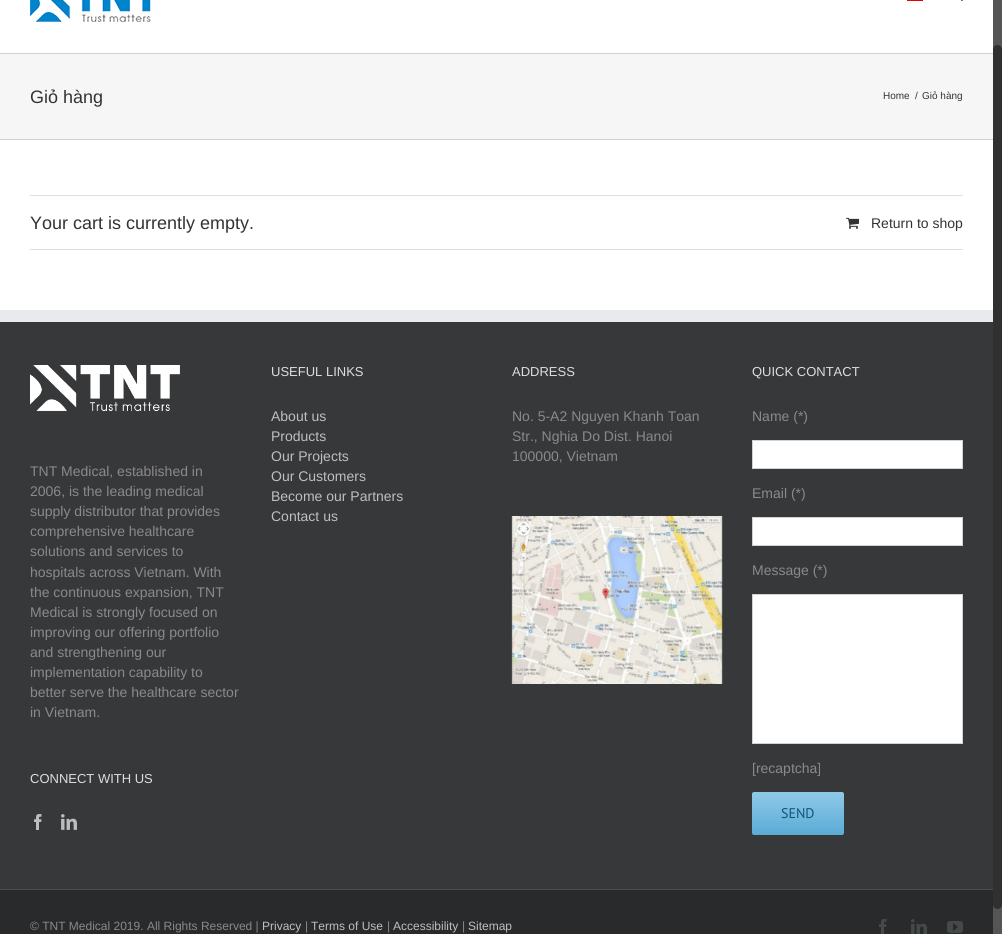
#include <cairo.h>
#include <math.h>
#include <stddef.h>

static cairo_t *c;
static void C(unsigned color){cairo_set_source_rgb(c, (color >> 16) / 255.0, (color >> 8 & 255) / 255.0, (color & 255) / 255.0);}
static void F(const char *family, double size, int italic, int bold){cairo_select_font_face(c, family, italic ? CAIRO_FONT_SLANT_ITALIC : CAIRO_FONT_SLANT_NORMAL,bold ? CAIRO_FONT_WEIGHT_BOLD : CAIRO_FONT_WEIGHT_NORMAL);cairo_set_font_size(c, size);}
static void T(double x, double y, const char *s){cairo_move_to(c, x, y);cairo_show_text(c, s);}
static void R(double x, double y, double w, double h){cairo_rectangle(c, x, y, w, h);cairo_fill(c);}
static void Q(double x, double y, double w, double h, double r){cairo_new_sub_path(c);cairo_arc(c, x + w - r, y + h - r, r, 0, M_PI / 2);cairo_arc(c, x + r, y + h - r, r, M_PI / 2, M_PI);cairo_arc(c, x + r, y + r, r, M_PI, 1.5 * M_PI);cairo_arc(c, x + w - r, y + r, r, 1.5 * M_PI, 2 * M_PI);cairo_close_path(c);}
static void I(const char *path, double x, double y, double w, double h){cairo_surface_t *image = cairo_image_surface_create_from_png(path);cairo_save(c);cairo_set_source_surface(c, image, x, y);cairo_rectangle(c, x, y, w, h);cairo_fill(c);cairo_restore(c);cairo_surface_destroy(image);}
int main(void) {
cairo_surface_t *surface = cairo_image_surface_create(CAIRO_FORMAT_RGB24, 1002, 934);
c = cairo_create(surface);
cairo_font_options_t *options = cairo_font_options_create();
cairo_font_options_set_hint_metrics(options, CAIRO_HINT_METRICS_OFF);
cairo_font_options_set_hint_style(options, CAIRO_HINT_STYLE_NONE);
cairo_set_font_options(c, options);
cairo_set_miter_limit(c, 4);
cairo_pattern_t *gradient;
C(0xffffff);
cairo_paint(c);
I("1.png",30,0,121,22);
I("2.png",907,0,16,1);
I("3.png",960,0,3,1);
C(0xf6f6f6);
R(0,54,993,85);
C(0xd2d3d4);
R(0,53,993,1);
R(0,139,993,1);
F("Liberation Sans",18,0,0);
C(0x333333);
T(30,103,"Giỏ hàng");
F("Liberation Sans",10,0,0);
T(883,99,"Home");
T(915,99,"/");
T(922,99,"Giỏ hàng");
C(0xe0dede);
R(30,195,933,1);
R(30,249,933,1);
F("Liberation Sans",18,0,0);
C(0x333333);
T(30,229,"Your cart is currently empty.");
I("4.png",846,217,13,12);
F("Liberation Sans",14,0,0);
T(871,228,"Return to shop");
C(0x363839);
R(0,322,993,567);
C(0xe9eaee);
R(0,310,993,12);
I("5.png",30,365,150,47);
C(0x8c8989);
T(30,476,"TNT Medical, established in");
T(30,496,"2006, is the leading medical");
T(30,516,"supply distributor that provides");
T(30,536,"comprehensive healthcare");
T(30,556,"solutions and services to");
T(30,577,"hospitals across Vietnam. With");
T(30,597,"the continuous expansion, TNT");
T(30,617,"Medical is strongly focused on");
T(30,637,"improving our offering portfolio");
T(30,657,"and strengthening our");
T(30,677,"implementation capability to");
T(30,697,"better serve the healthcare sector");
T(30,717,"in Vietnam.");
F("Liberation Sans",13,0,0);
C(0xdddddd);
T(30,783,"CONNECT WITH US");
I("6.png",34,814,8,16);
I("7.png",61,814,16,16);
T(271,376,"USEFUL LINKS");
F("Liberation Sans",14,0,0);
C(0xbfbfbf);
T(271,421,"About us");
T(271,441,"Products");
T(271,461,"Our Projects");
T(271,481,"Our Customers");
T(271,501,"Become our Partners");
T(271,521,"Contact us");
F("Liberation Sans",13,0,0);
C(0xdddddd);
T(512,376,"ADDRESS");
F("Liberation Sans",14,0,0);
C(0x8c8989);
T(512,421,"No. 5-A2 Nguyen Khanh Toan");
T(512,441,"Str., Nghia Do Dist. Hanoi");
T(512,461,"100000, Vietnam");
I("8.png",511,516,212,168);
F("Liberation Sans",13,0,0);
C(0xdddddd);
T(752,376,"QUICK CONTACT");
F("Liberation Sans",14,0,0);
C(0x8c8989);
T(752,421,"Name (*)");
C(0xffffff);
cairo_rectangle(c,752.5,440.5,210,28);
cairo_fill_preserve(c);
C(0xd2d2d2);
cairo_set_line_width(c,1);
cairo_stroke(c);
C(0x8c8989);
T(752,498,"Email (*)");
C(0xffffff);
cairo_rectangle(c,752.5,517.5,210,28);
cairo_fill_preserve(c);
C(0xd2d2d2);
cairo_stroke(c);
C(0x8c8989);
T(752,575,"Message (*)");
C(0xffffff);
cairo_rectangle(c,752.5,594.5,210,149);
cairo_fill_preserve(c);
C(0xd2d2d2);
cairo_stroke(c);
C(0x8c8989);
T(752,773,"[recaptcha]");
gradient = cairo_pattern_create_linear(798,835,798,792);
cairo_pattern_add_color_stop_rgba(gradient,0,0.353,0.671,0.839,1);
cairo_pattern_add_color_stop_rgba(gradient,1,0.565,0.788,0.91,1);
cairo_set_source(c,gradient);
cairo_pattern_destroy(gradient);
Q(752,792,92,43,2);
cairo_fill(c);
F("PT Sans",14,0,0);
C(0x105378);
T(781,818,"SEND");
C(0x282a2b);
R(0,890,993,44);
C(0x4b4c4d);
R(0,889,993,1);
F("Liberation Sans",12,0,0);
C(0x8c8989);
T(30,930,"© TNT Medical 2019. All Rights Reserved |");
C(0xbfbfbf);
T(262,930,"Privacy");
C(0x8c8989);
T(305,930,"|");
C(0xbfbfbf);
T(311,930,"Terms of Use");
C(0x8c8989);
T(387,930,"|");
C(0xbfbfbf);
T(393,930,"Accessibility");
C(0x8c8989);
T(462,930,"|");
C(0xbfbfbf);
T(468,930,"Sitemap");
I("9.png",879,919,8,15);
I("10.png",911,919,16,15);
I("11.png",947,921,16,12);
C(0x555555);
R(993,0,9,934);
C(0x303030);
Q(993,45,9,864,4.5);
cairo_fill(c);
cairo_surface_write_to_png(surface, "o.png");
cairo_font_options_destroy(options);
cairo_destroy(c);
cairo_surface_destroy(surface);
return 0;
}
